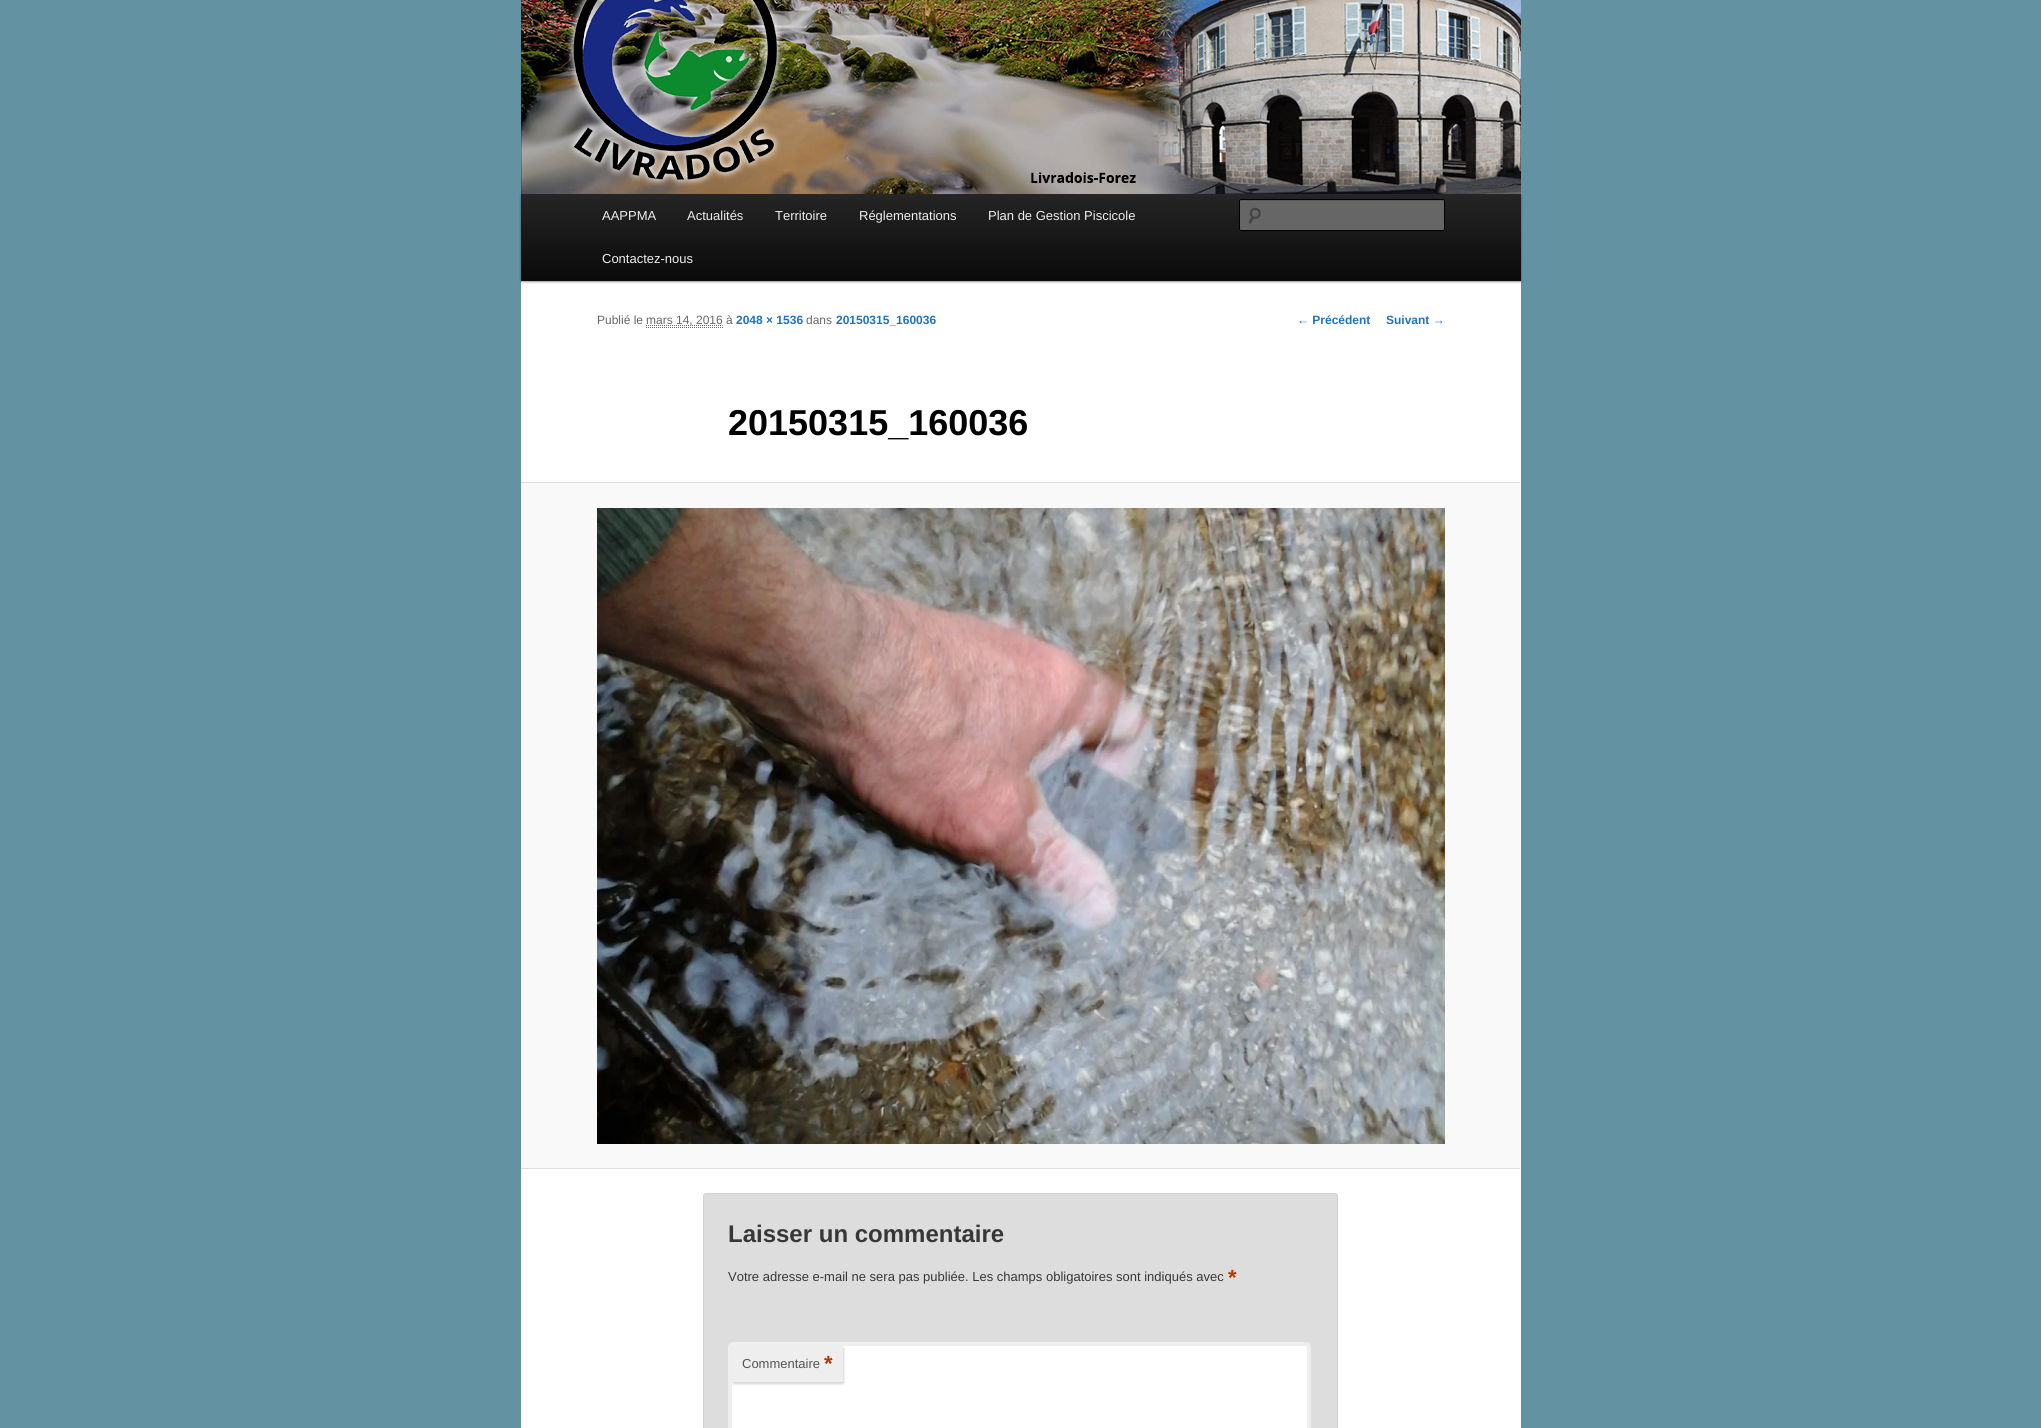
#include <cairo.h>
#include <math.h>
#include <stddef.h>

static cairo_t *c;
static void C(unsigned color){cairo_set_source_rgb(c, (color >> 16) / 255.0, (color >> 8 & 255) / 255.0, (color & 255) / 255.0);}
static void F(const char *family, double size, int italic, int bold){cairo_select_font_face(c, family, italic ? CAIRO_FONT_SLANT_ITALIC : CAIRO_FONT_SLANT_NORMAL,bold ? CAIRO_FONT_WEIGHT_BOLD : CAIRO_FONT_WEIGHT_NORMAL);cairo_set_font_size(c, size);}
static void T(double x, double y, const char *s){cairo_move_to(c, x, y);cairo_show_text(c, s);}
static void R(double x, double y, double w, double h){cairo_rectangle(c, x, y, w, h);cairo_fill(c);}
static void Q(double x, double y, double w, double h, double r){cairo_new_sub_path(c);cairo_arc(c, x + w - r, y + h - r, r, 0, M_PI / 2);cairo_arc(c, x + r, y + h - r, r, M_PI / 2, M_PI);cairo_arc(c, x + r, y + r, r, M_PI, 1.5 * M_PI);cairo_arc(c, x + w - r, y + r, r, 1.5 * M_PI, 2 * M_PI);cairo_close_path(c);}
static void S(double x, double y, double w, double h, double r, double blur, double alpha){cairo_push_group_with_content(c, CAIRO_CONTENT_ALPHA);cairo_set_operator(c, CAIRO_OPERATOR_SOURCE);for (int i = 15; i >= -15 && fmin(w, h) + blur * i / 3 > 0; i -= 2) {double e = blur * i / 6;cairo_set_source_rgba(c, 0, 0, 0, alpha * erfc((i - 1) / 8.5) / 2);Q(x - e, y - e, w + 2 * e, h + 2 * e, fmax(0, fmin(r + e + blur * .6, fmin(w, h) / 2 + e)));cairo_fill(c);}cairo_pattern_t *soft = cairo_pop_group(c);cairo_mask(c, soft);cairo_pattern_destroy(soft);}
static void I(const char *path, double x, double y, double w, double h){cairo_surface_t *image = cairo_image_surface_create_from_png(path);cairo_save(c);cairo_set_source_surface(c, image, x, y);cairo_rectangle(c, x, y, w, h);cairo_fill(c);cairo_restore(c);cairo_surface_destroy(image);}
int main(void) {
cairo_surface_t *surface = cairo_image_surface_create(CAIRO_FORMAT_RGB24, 2041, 1428);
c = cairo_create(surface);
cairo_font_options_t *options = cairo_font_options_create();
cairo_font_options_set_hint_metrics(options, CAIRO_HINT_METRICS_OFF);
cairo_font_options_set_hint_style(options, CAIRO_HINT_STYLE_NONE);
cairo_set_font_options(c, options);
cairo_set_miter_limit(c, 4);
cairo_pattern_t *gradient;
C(0x6392a3);
cairo_paint(c);
C(0xffffff);
R(521,281,1000,1147);
C(0x000000);
S(521,195,1000,87,0,1,.4);
I("1.png",521,0,1000,194);
gradient = cairo_pattern_create_linear(1021,194,1021,281);
cairo_pattern_add_color_stop_rgba(gradient,0,0.145,0.145,0.145,1);
cairo_pattern_add_color_stop_rgba(gradient,1,0.039,0.039,0.039,1);
cairo_set_source(c,gradient);
cairo_pattern_destroy(gradient);
R(521,194,1000,87);
F("Liberation Sans",13,0,0);
C(0xeeeeee);
T(602,220,"AAPPMA");
T(687,220,"Actualités");
T(775,220,"Territoire");
T(859,220,"Réglementations");
T(988,220,"Plan de Gestion Piscicole");
T(602,263,"Contactez-nous");
C(0x666666);
Q(1239,199,206,32,2);
cairo_fill(c);
I("2.png",1248,207,13,17);
C(0x5c5c5c);
cairo_new_path(c);
cairo_move_to(c,1241,201);
cairo_line_to(c,1444,201);
cairo_line_to(c,1444,202);
cairo_line_to(c,1444,200);
cairo_line_to(c,1443,200);
cairo_line_to(c,1241,200);
cairo_curve_to(c,1240,200,1240,201,1240,202);
cairo_curve_to(c,1240,201,1240,201,1241,201);
cairo_close_path(c);
cairo_fill(c);
Q(1239.5,199.5,205,31,1.5);
C(0x000000);
cairo_set_line_width(c,1);
cairo_stroke(c);
F("Liberation Sans",12,0,0);
C(0x666666);
T(597,324,"Publié le");
cairo_new_path(c);
cairo_move_to(c,646,325.5);
cairo_line_to(c,722.5,325.5);
cairo_set_dash(c,(double[]){1,1},2,0);
cairo_stroke(c);
T(646,324,"mars 14, 2016 à");
cairo_new_path(c);
cairo_move_to(c,646,327.5);
cairo_line_to(c,723,327.5);
cairo_stroke(c);
F("Liberation Sans",12,0,1);
C(0x1e73be);
T(736,324,"2048 × 1536");
F("Liberation Sans",12,0,0);
C(0x666666);
T(806,324,"dans");
F("Liberation Sans",12,0,1);
C(0x1e73be);
T(836,324,"20150315_160036");
F("Liberation Sans",36,0,1);
C(0x000000);
T(728,435,"20150315_160036");
C(0xf9f9f9);
R(521,483,999,685);
C(0xdddddd);
R(521,482,999,1);
R(521,1168,999,1);
I("3.png",597,508,848,636);
F("Liberation Sans",12,0,1);
C(0x1e73be);
T(1297,324,"← Précédent");
T(1386,324,"Suivant →");
C(0xdddddd);
Q(703.5,1193.5,634,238,2.5);
cairo_fill_preserve(c);
C(0xd3d3d3);
cairo_set_dash(c,NULL,0,0);
cairo_stroke(c);
F("Liberation Sans",24,0,1);
C(0x373737);
T(728,1242,"Laisser un commentaire");
F("Liberation Sans",13,0,0);
T(728,1281,"Votre adresse e-mail ne sera pas publiée. Les champs obligatoires sont indiqués avec");
F("Liberation Sans",22,0,1);
C(0xbd3500);
T(1228,1285,"*");
C(0xffffff);
Q(730,1344,579,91,3);
cairo_fill_preserve(c);
C(0xeeeeee);
cairo_set_line_width(c,4);
cairo_stroke(c);
C(0xcccccc);
S(733,1348,111,36,0,1,.8);
C(0xeeeeee);
R(732,1346,111,36);
F("Liberation Sans",13,0,0);
C(0x555555);
T(742,1368,"Commentaire");
F("Liberation Sans",22,0,1);
C(0xbd3500);
T(824,1371,"*");
cairo_surface_write_to_png(surface, "o.png");
cairo_font_options_destroy(options);
cairo_destroy(c);
cairo_surface_destroy(surface);
return 0;
}
